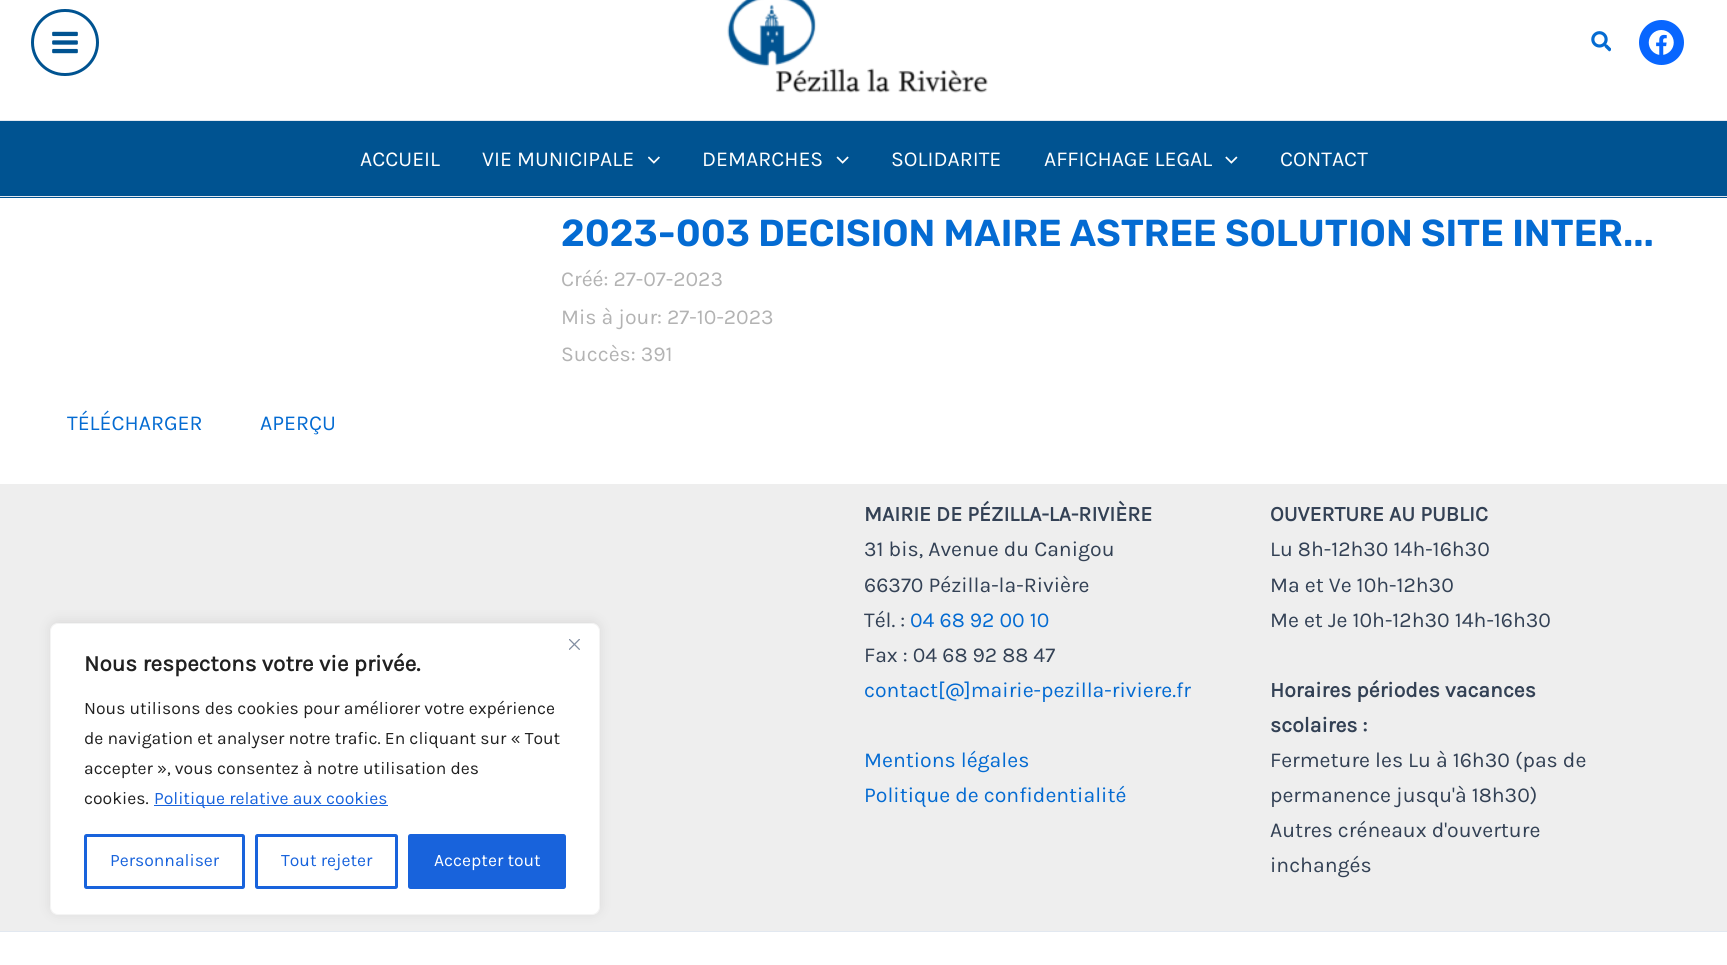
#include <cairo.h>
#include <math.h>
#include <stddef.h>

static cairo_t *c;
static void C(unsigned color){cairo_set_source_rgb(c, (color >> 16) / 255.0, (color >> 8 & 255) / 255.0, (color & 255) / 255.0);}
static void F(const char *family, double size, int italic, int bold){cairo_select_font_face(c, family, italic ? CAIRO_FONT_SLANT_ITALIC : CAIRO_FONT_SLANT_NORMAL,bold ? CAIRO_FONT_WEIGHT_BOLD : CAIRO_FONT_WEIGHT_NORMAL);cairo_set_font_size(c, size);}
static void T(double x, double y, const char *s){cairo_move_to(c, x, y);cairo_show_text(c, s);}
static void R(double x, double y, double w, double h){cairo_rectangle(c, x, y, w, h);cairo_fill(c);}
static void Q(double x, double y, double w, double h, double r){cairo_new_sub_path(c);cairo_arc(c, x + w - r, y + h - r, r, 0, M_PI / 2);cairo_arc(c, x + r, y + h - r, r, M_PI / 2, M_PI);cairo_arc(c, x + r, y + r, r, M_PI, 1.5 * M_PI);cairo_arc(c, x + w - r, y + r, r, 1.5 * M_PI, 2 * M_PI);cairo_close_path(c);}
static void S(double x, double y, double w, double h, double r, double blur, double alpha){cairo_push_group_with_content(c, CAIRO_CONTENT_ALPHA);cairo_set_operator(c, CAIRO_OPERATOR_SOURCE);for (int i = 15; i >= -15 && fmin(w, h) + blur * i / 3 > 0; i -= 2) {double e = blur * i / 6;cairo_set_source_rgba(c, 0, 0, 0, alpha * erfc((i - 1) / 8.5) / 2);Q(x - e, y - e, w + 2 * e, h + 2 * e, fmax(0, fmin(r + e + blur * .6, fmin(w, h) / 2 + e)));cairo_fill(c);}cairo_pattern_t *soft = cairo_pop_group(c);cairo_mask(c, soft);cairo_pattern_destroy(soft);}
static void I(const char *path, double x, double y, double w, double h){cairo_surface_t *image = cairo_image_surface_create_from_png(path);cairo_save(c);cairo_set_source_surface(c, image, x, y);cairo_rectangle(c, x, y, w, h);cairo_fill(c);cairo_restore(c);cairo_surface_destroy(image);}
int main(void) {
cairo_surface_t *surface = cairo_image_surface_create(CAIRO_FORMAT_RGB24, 1727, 965);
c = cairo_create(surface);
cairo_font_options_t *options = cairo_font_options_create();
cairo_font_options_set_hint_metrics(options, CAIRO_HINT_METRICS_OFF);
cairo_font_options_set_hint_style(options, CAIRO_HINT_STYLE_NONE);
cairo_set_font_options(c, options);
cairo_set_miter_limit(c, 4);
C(0xffffff);
cairo_paint(c);
C(0xe2e8f0);
R(0,120,1727,1);
Q(32.5,10.5,65,64,32);
C(0x005391);
cairo_set_line_width(c,3);
cairo_stroke(c);
I("1.png",52,31,26,23);
I("2.png",727,0,261,93);
I("3.png",1591,31,20,21);
C(0x0866ff);
cairo_arc(c,1661.5,42.5,22.5,0,2 * M_PI);
cairo_fill(c);
I("4.png",1648,30,26,25);
C(0x005391);
R(0,121,1727,77);
C(0xe2e8f0);
R(0,196,1727,1);
F("Karla",21.25,0,0);
C(0xffffff);
T(360,166,"ACCUEIL");
T(482,166,"VIE MUNICIPALE");
I("5.png",648,156,12,8);
T(702,166,"DEMARCHES");
I("6.png",836,156,13,8);
T(891,166,"SOLIDARITE");
T(1044,166,"AFFICHAGE LEGAL");
I("7.png",1225,156,13,8);
T(1280,166,"CONTACT");
F("Rubik SemiBold",37.5,0,0);
C(0x046bd2);
T(561,246,"2023-003 DECISION MAIRE ASTREE SOLUTION SITE INTER...");
F("Karla",21.25,0,0);
C(0xb3b3b3);
T(561,286,"Créé: 27-07-2023");
T(561,324,"Mis à jour: 27-10-2023");
T(561,361,"Succès: 391");
C(0x046bd2);
T(67,430,"TÉLÉCHARGER");
T(260,430,"APERÇU");
C(0xeeeeee);
R(0,484,1727,447);
F("Karla",21.25,0,1);
C(0x334155);
T(864,521,"MAIRIE DE PÉZILLA-LA-RIVIÈRE");
F("Karla",21.25,0,0);
T(864,556,"31 bis, Avenue du Canigou");
T(864,592,"66370 Pézilla-la-Rivière");
T(864,627,"Tél. :");
C(0x046bd2);
T(910,627,"04 68 92 00 10");
C(0x334155);
T(864,662,"Fax : 04 68 92 88 47");
C(0x046bd2);
T(864,697,"contact[@]mairie-pezilla-riviere.fr");
T(864,767,"Mentions légales");
T(864,802,"Politique de confidentialité");
F("Karla",21.25,0,1);
C(0x334155);
T(1270,521,"OUVERTURE AU PUBLIC");
F("Karla",21.25,0,0);
T(1270,556,"Lu 8h-12h30 14h-16h30");
T(1270,592,"Ma et Ve 10h-12h30");
T(1270,627,"Me et Je 10h-12h30 14h-16h30");
F("Karla",21.25,0,1);
T(1270,697,"Horaires périodes vacances");
T(1270,732,"scolaires :");
F("Karla",21.25,0,0);
T(1270,767,"Fermeture les Lu à 16h30 (pas de");
T(1270,802,"permanence jusqu'à 18h30)");
T(1270,837,"Autres créneaux d'ouverture");
T(1270,872,"inchangés");
C(0xe2e8f0);
R(0,931,1727,1);
C(0xacabab);
S(50,621,550,293,8,6,.3);
C(0xffffff);
Q(50.5,623.5,549,291,7.5);
cairo_fill_preserve(c);
C(0xf4f4f4);
cairo_set_line_width(c,1);
cairo_stroke(c);
I("8.png",569,639,11,11);
F("Karla",22.5,0,1);
C(0x212121);
T(84,671,"Nous respectons votre vie privée.");
F("Karla",17.5,0,0);
T(84,714,"Nous utilisons des cookies pour améliorer votre expérience");
T(84,744,"de navigation et analyser notre trafic. En cliquant sur « Tout");
T(84,774,"accepter », vous consentez à notre utilisation des");
T(84,804,"cookies.");
C(0x1863dc);
R(154,805,234,1);
T(154,804,"Politique relative aux cookies");
Q(85.5,835.5,158,52,1);
cairo_set_line_width(c,3);
cairo_stroke(c);
T(110,866,"Personnaliser");
Q(256.5,835.5,140,52,1);
cairo_stroke(c);
T(281,866,"Tout rejeter");
Q(409.5,835.5,155,52,1);
cairo_fill_preserve(c);
cairo_stroke(c);
C(0xffffff);
T(434,866,"Accepter tout");
cairo_surface_write_to_png(surface, "o.png");
cairo_font_options_destroy(options);
cairo_destroy(c);
cairo_surface_destroy(surface);
return 0;
}
